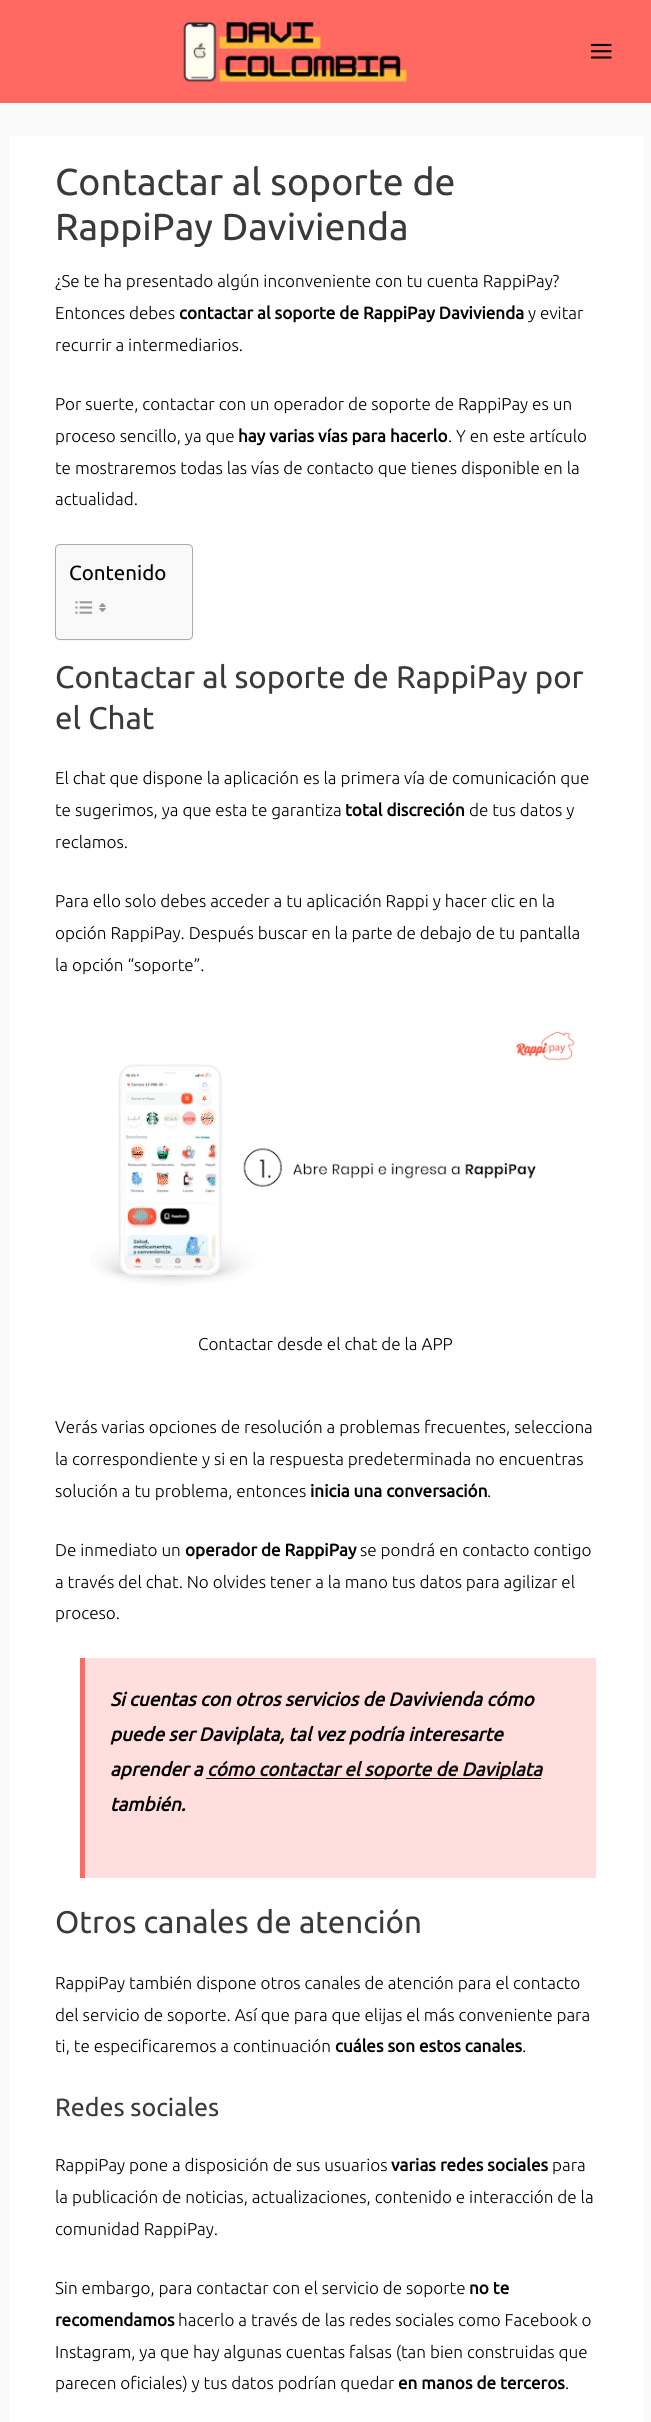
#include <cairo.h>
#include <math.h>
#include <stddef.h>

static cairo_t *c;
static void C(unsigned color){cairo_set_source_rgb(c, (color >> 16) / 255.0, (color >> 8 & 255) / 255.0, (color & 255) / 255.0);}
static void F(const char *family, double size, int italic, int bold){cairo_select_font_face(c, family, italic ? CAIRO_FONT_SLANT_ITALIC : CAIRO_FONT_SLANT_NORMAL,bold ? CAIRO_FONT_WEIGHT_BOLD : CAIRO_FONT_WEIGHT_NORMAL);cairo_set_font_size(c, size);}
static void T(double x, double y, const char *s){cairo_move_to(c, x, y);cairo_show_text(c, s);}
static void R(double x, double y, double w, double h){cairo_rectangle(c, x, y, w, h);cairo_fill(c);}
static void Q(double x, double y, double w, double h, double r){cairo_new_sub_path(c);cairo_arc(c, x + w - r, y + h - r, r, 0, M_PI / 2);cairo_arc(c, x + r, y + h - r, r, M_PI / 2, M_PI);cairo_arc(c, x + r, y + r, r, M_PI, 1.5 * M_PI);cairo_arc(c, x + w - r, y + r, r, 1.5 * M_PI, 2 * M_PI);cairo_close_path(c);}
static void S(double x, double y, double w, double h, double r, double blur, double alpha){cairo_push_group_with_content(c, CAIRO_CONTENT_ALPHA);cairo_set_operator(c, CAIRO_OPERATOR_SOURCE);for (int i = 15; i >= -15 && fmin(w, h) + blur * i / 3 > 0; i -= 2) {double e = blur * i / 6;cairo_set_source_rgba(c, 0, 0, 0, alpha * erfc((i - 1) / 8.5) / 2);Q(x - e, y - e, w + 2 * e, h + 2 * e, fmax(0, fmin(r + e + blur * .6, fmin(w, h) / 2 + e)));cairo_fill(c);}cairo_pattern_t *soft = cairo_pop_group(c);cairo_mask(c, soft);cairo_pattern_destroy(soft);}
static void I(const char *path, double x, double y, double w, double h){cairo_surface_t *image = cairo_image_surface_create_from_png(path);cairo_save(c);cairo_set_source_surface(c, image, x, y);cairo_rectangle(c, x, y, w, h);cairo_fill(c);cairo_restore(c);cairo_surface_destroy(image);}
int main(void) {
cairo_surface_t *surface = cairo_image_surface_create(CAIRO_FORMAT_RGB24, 651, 2422);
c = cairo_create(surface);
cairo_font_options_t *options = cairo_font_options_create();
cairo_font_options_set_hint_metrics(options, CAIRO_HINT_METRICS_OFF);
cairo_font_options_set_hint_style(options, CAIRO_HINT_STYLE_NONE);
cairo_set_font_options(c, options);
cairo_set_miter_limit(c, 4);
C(0xfafafa);
cairo_paint(c);
C(0xff6961);
R(0,0,651,103);
I("1.png",183,21,224,62);
I("2.png",590,43,22,16);
C(0xffffff);
R(9,136,634,2286);
F("Ubuntu",37.5,0,0);
C(0x3a3a3a);
T(55,195,"Contactar al soporte de");
T(55,240,"RappiPay Davivienda");
F("Ubuntu Light",17.1,0,0);
C(0x000000);
T(55,287,"¿Se te ha presentado algún inconveniente con tu cuenta RappiPay?");
T(55,319,"Entonces debes");
F("Ubuntu",17.1,0,1);
T(179,319,"contactar al soporte de RappiPay Davivienda");
F("Ubuntu Light",17.1,0,0);
T(528,319,"y evitar");
T(55,351,"recurrir a intermediarios.");
T(55,410,"Por suerte, contactar con un operador de soporte de RappiPay es un");
T(55,442,"proceso sencillo, ya que");
F("Ubuntu",17.1,0,1);
T(238,442,"hay varias vías para hacerlo");
F("Ubuntu Light",17.1,0,0);
T(448,442,". Y en este artículo");
T(55,474,"te mostraremos todas las vías de contacto que tienes disponible en la");
T(55,505,"actualidad.");
C(0x000000);
S(55,545,138,96,5,.5,.05);
C(0xf9f9f9);
Q(55.5,544.5,137,95,4.5);
cairo_fill_preserve(c);
C(0xaaaaaa);
cairo_set_line_width(c,1);
cairo_stroke(c);
F("Ubuntu",20.5,0,0);
C(0x000000);
T(69,580,"Contenido");
I("3.png",75,601,18,13);
I("4.png",99,603,7,9);
F("Ubuntu",31.25,0,0);
C(0x3a3a3a);
T(55,688,"Contactar al soporte de RappiPay por");
T(55,729,"el Chat");
F("Ubuntu Light",17.1,0,0);
C(0x000000);
T(55,784,"El chat que dispone la aplicación es la primera vía de comunicación que");
T(55,816,"te sugerimos, ya que esta te garantiza");
F("Ubuntu",17.1,0,1);
T(345,816,"total discreción");
F("Ubuntu Light",17.1,0,0);
T(469,816,"de tus datos y");
T(55,848,"reclamos.");
T(55,907,"Para ello solo debes acceder a tu aplicación Rappi y hacer clic en la");
T(55,939,"opción RappiPay. Después buscar en la parte de debajo de tu pantalla");
T(55,971,"la opción “soporte”.");
I("5.png",89,1031,486,255);
T(198,1350,"Contactar desde el chat de la APP");
T(55,1433,"Verás varias opciones de resolución a problemas frecuentes, selecciona");
T(55,1465,"la correspondiente y si en la respuesta predeterminada no encuentras");
T(55,1497,"solución a tu problema, entonces");
F("Ubuntu",17.1,0,1);
T(310,1497,"inicia una conversación");
F("Ubuntu Light",17.1,0,0);
T(487,1497,".");
T(55,1556,"De inmediato un");
F("Ubuntu",17.1,0,1);
T(185,1556,"operador de RappiPay");
F("Ubuntu Light",17.1,0,0);
T(360,1556,"se pondrá en contacto contigo");
T(55,1588,"a través del chat. No olvides tener a la mano tus datos para agilizar el");
T(55,1619,"proceso.");
C(0xffdedd);
R(85,1658,511,220);
C(0xff6961);
R(80,1658,5,220);
F("Ubuntu",18.8,1,1);
C(0x000000);
T(110,1706,"Si cuentas con otros servicios de Davivienda cómo");
T(110,1741,"puede ser Daviplata, tal vez podría interesarte");
T(110,1776,"aprender a");
C(0x0d0d0d);
R(206,1778,335,1);
T(207,1776,"cómo contactar el soporte de Daviplata");
C(0x000000);
T(110,1811,"también.");
F("Ubuntu",31.25,0,0);
C(0x3a3a3a);
T(55,1933,"Otros canales de atención");
F("Ubuntu Light",17.1,0,0);
C(0x000000);
T(55,1989,"RappiPay también dispone otros canales de atención para el contacto");
T(55,2021,"del servicio de soporte. Así que para que elijas el más conveniente para");
T(55,2052,"ti, te especificaremos a continuación");
F("Ubuntu",17.1,0,1);
T(335,2052,"cuáles son estos canales");
F("Ubuntu Light",17.1,0,0);
T(522,2052,".");
F("Ubuntu",25,0,0);
C(0x3a3a3a);
T(55,2116,"Redes sociales");
F("Ubuntu Light",17.1,0,0);
C(0x000000);
T(55,2171,"RappiPay pone a disposición de sus usuarios");
F("Ubuntu",17.1,0,1);
T(391,2171,"varias redes sociales");
F("Ubuntu Light",17.1,0,0);
T(552,2171,"para");
T(55,2203,"la publicación de noticias, actualizaciones, contenido e interacción de la");
T(55,2235,"comunidad RappiPay.");
T(55,2294,"Sin embargo, para contactar con el servicio de soporte");
F("Ubuntu",17.1,0,1);
T(469,2294,"no te");
T(55,2326,"recomendamos");
F("Ubuntu Light",17.1,0,0);
T(178,2326,"hacerlo a través de las redes sociales como Facebook o");
T(55,2358,"Instagram, ya que hay algunas cuentas falsas (tan bien construidas que");
T(55,2389,"parecen oficiales) y tus datos podrían quedar");
F("Ubuntu",17.1,0,1);
T(398,2389,"en manos de terceros");
F("Ubuntu Light",17.1,0,0);
T(565,2389,".");
cairo_surface_write_to_png(surface, "o.png");
cairo_font_options_destroy(options);
cairo_destroy(c);
cairo_surface_destroy(surface);
return 0;
}
